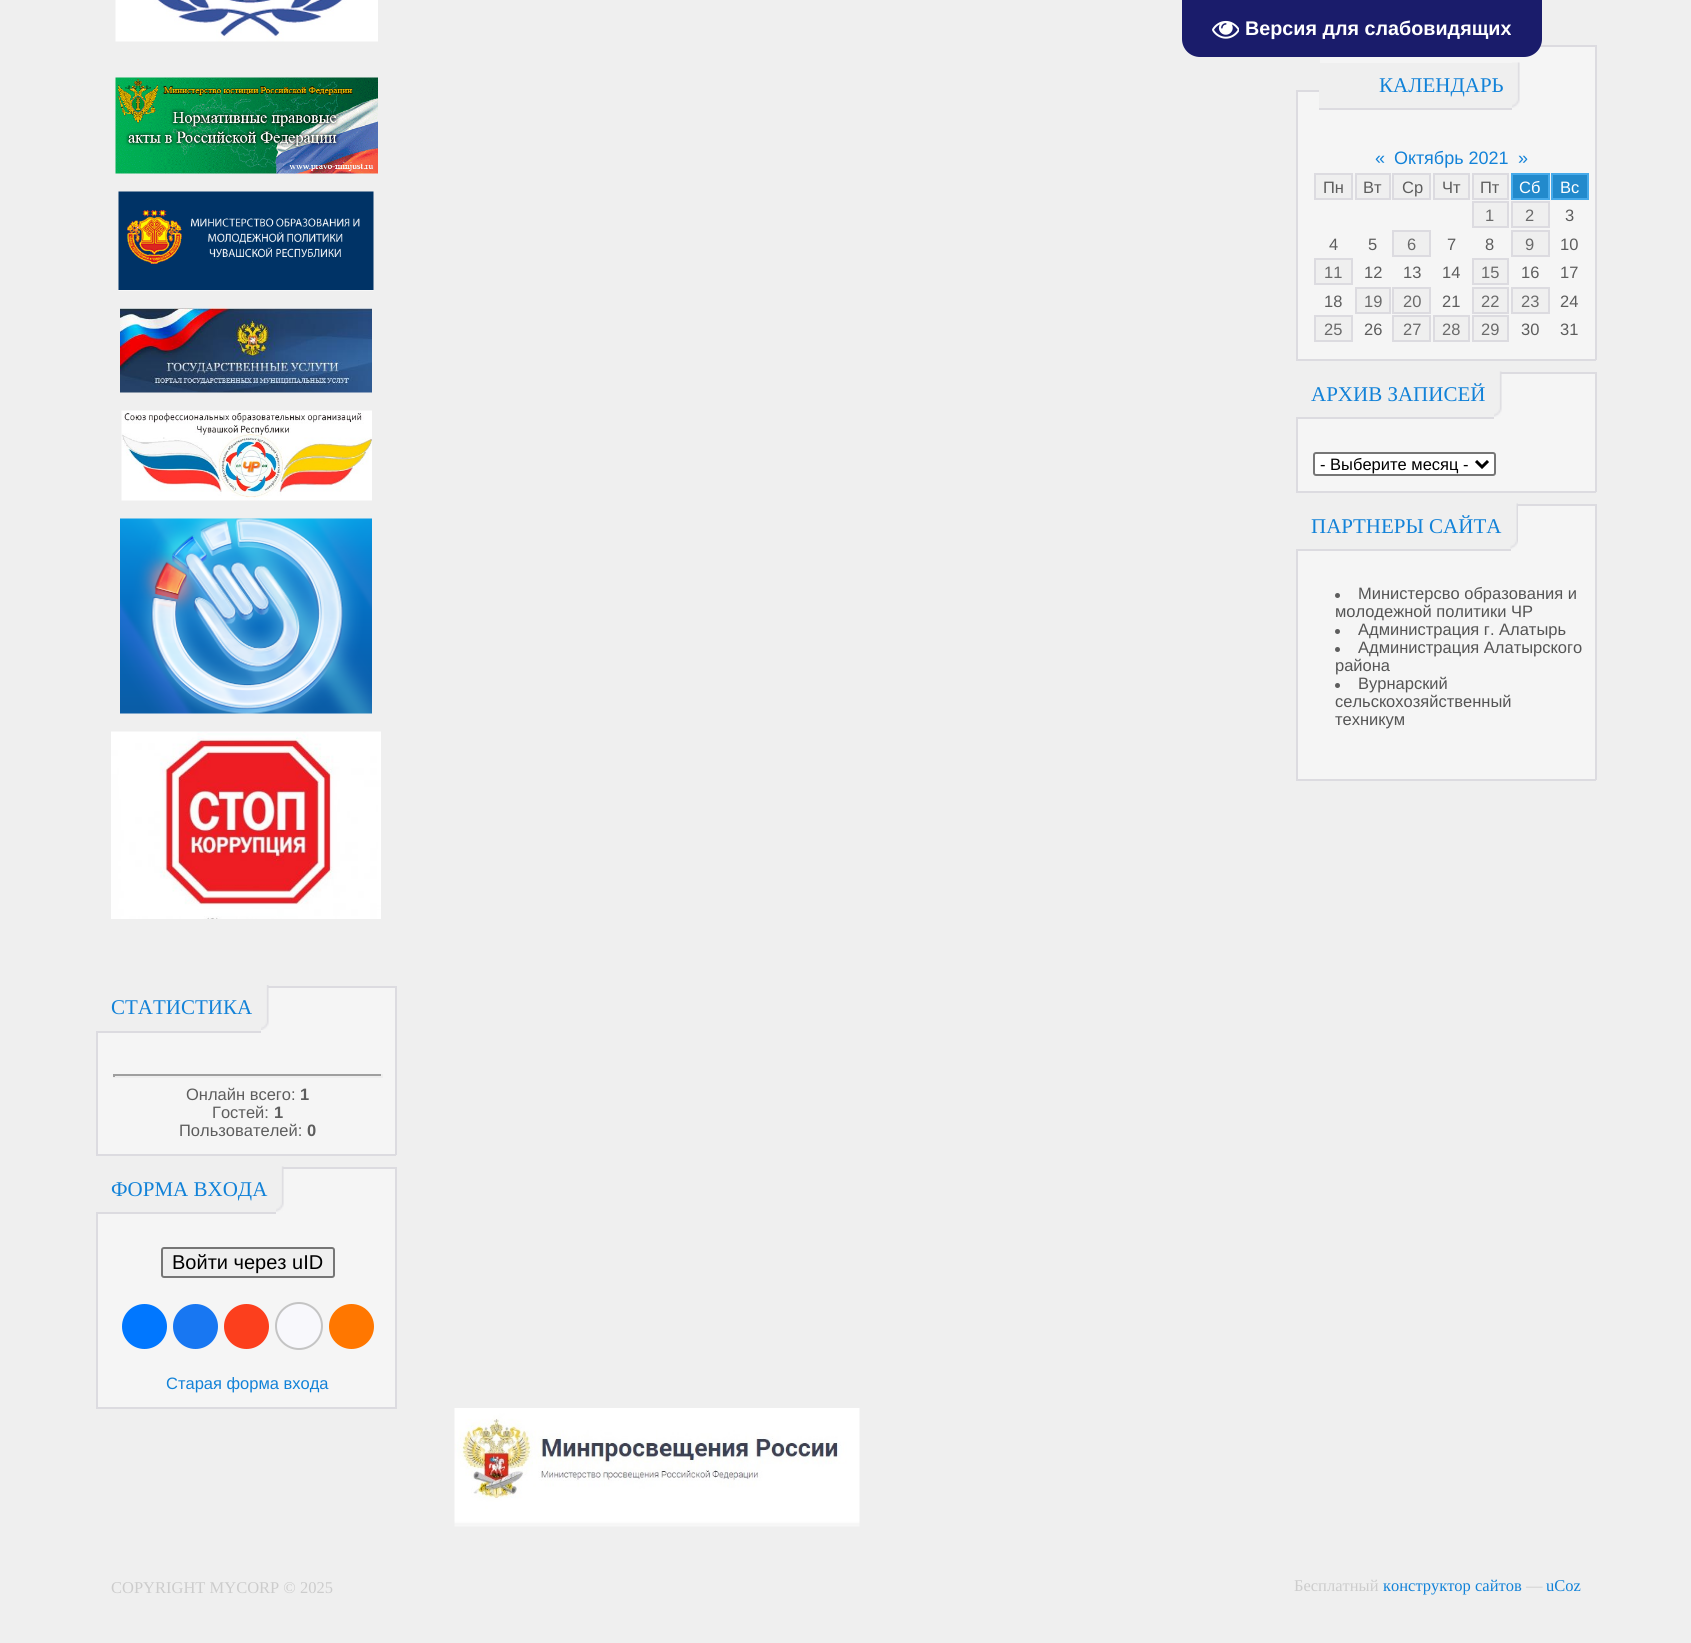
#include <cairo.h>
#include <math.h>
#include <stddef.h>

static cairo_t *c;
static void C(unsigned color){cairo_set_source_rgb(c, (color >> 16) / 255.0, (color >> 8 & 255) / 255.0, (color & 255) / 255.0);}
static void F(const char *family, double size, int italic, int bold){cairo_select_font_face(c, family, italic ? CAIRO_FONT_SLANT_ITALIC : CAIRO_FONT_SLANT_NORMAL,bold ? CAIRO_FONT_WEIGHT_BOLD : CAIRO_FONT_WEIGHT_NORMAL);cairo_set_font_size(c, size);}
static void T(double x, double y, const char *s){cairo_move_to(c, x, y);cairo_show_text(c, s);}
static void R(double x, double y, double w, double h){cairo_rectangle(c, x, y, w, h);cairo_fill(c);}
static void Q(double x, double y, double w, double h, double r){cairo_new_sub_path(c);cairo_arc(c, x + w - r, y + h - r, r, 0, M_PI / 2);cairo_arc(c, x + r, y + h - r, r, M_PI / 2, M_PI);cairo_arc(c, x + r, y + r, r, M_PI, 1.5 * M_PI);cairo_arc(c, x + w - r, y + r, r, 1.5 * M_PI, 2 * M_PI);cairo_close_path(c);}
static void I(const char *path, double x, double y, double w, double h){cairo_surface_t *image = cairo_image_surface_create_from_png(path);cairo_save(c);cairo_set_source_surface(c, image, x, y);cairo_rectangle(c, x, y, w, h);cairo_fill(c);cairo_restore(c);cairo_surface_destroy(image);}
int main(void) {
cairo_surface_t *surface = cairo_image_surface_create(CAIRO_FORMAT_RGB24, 1691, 1643);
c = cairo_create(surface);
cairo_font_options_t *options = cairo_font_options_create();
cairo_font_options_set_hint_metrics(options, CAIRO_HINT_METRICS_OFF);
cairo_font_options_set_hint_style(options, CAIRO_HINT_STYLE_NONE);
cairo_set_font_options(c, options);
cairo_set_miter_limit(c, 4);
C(0xefefef);
cairo_paint(c);
C(0xf5f5f5);
R(1298,47,297,312);
C(0xdcdbe0);
R(1540,45,56,2);
C(0x1a1c6b);
cairo_new_path(c);
cairo_move_to(c,1182,0);
cairo_line_to(c,1542,0);
cairo_line_to(c,1542,39);
cairo_curve_to(c,1542,49,1534,57,1524,57);
cairo_line_to(c,1200,57);
cairo_curve_to(c,1190,57,1182,49,1182,39);
cairo_close_path(c);
cairo_fill(c);
I("1.png",1212,20,27,19);
F("Liberation Sans",19.75,0,1);
C(0xffffff);
T(1245,35,"Версия для слабовидящих");
C(0xdcdbe0);
R(1595,45,2,315);
R(1296,92,2,36);
C(0xefefef);
R(1298,57,22,33);
C(0xdcdbe0);
R(1296,90,24,2);
C(0xefefef);
R(1319,63,193,45);
C(0xdcdbe0);
R(1319,108,193,2);
I("2.png",1512,62,8,46);
F("Liberation Serif",21,0,0);
C(0x1282d8);
T(1379,92,"КАЛЕНДАРЬ");
C(0xdcdbe0);
R(1296,359,300,2);
R(1296,128,2,232);
F("Liberation Sans",18,0,0);
C(0x1282d8);
T(1375,164,"«");
T(1394,164,"Октябрь 2021");
T(1518,164,"»");
C(0xefefef);
cairo_rectangle(c,1315,174,37,25);
cairo_fill_preserve(c);
C(0xdcdbe0);
cairo_stroke(c);
F("Liberation Sans",16.5,0,0);
C(0x5d5d5d);
T(1323,193,"Пн");
C(0xefefef);
cairo_rectangle(c,1356,174,34,25);
cairo_fill_preserve(c);
C(0xdcdbe0);
cairo_stroke(c);
C(0x5d5d5d);
T(1363,193,"Вт");
C(0xefefef);
cairo_rectangle(c,1393,174,37,25);
cairo_fill_preserve(c);
C(0xdcdbe0);
cairo_stroke(c);
C(0x5d5d5d);
T(1402,193,"Ср");
C(0xefefef);
cairo_rectangle(c,1434,174,35,25);
cairo_fill_preserve(c);
C(0xdcdbe0);
cairo_stroke(c);
C(0x5d5d5d);
T(1442,193,"Чт");
C(0xefefef);
cairo_rectangle(c,1473,174,35,25);
cairo_fill_preserve(c);
C(0xdcdbe0);
cairo_stroke(c);
C(0x5d5d5d);
T(1480,193,"Пт");
C(0x228acc);
cairo_rectangle(c,1512,174,37,25);
cairo_fill_preserve(c);
C(0x46aaea);
cairo_stroke(c);
C(0xffffff);
T(1519,193,"Сб");
C(0x228acc);
cairo_rectangle(c,1552,174,36,25);
cairo_fill_preserve(c);
C(0x46aaea);
cairo_stroke(c);
C(0xffffff);
T(1560,193,"Вс");
C(0xefefef);
cairo_rectangle(c,1473,202,35,25);
cairo_fill_preserve(c);
C(0xdcdbe0);
cairo_stroke(c);
C(0x6a6a6a);
T(1485,221,"1");
C(0xefefef);
cairo_rectangle(c,1512,202,37,25);
cairo_fill_preserve(c);
C(0xdcdbe0);
cairo_stroke(c);
C(0x6a6a6a);
T(1525,221,"2");
C(0x5d5d5d);
T(1565,221,"3");
T(1329,250,"4");
T(1368,250,"5");
C(0xefefef);
cairo_rectangle(c,1393,231,37,25);
cairo_fill_preserve(c);
C(0xdcdbe0);
cairo_stroke(c);
C(0x6a6a6a);
T(1407,250,"6");
C(0x5d5d5d);
T(1447,250,"7");
T(1485,250,"8");
C(0xefefef);
cairo_rectangle(c,1512,231,37,25);
cairo_fill_preserve(c);
C(0xdcdbe0);
cairo_stroke(c);
C(0x6a6a6a);
T(1525,250,"9");
C(0x5d5d5d);
T(1560,250,"10");
C(0xefefef);
cairo_rectangle(c,1315,259,37,25);
cairo_fill_preserve(c);
C(0xdcdbe0);
cairo_stroke(c);
C(0x6a6a6a);
T(1324,278,"11");
C(0x5d5d5d);
T(1364,278,"12");
T(1403,278,"13");
T(1442,278,"14");
C(0xefefef);
cairo_rectangle(c,1473,259,35,25);
cairo_fill_preserve(c);
C(0xdcdbe0);
cairo_stroke(c);
C(0x6a6a6a);
T(1481,278,"15");
C(0x5d5d5d);
T(1521,278,"16");
T(1560,278,"17");
T(1324,307,"18");
C(0xefefef);
cairo_rectangle(c,1356,288,34,25);
cairo_fill_preserve(c);
C(0xdcdbe0);
cairo_stroke(c);
C(0x6a6a6a);
T(1364,307,"19");
C(0xefefef);
cairo_rectangle(c,1393,288,37,25);
cairo_fill_preserve(c);
C(0xdcdbe0);
cairo_stroke(c);
C(0x6a6a6a);
T(1403,307,"20");
C(0x5d5d5d);
T(1442,307,"21");
C(0xefefef);
cairo_rectangle(c,1473,288,35,25);
cairo_fill_preserve(c);
C(0xdcdbe0);
cairo_stroke(c);
C(0x6a6a6a);
T(1481,307,"22");
C(0xefefef);
cairo_rectangle(c,1512,288,37,25);
cairo_fill_preserve(c);
C(0xdcdbe0);
cairo_stroke(c);
C(0x6a6a6a);
T(1521,307,"23");
C(0x5d5d5d);
T(1560,307,"24");
C(0xefefef);
cairo_rectangle(c,1315,316,37,25);
cairo_fill_preserve(c);
C(0xdcdbe0);
cairo_stroke(c);
C(0x6a6a6a);
T(1324,335,"25");
C(0x5d5d5d);
T(1364,335,"26");
C(0xefefef);
cairo_rectangle(c,1393,316,37,25);
cairo_fill_preserve(c);
C(0xdcdbe0);
cairo_stroke(c);
C(0x6a6a6a);
T(1403,335,"27");
C(0xefefef);
cairo_rectangle(c,1434,316,35,25);
cairo_fill_preserve(c);
C(0xdcdbe0);
cairo_stroke(c);
C(0x6a6a6a);
T(1442,335,"28");
C(0xefefef);
cairo_rectangle(c,1473,316,35,25);
cairo_fill_preserve(c);
C(0xdcdbe0);
cairo_stroke(c);
C(0x6a6a6a);
T(1481,335,"29");
C(0x5d5d5d);
T(1521,335,"30");
T(1560,335,"31");
C(0xf5f5f5);
R(1298,374,297,117);
C(0xdcdbe0);
R(1501,372,95,2);
R(1595,372,2,120);
R(1296,419,2,18);
C(0xefefef);
R(1298,374,196,43);
C(0xdcdbe0);
R(1296,417,198,2);
F("Liberation Serif",21,0,0);
C(0x1282d8);
T(1311,401,"АРХИВ ЗАПИСЕЙ");
I("3.png",1494,371,8,46);
C(0xdcdbe0);
R(1296,491,300,2);
R(1296,437,2,55);
C(0xffffff);
Q(1314,453,181,22,2);
cairo_fill_preserve(c);
C(0x767676);
cairo_stroke(c);
cairo_new_path(c);
cairo_move_to(c,1476,461);
cairo_line_to(c,1482,467);
cairo_line_to(c,1488,461);
C(0x000000);
cairo_set_line_width(c,3);
cairo_stroke(c);
F("Liberation Sans",16.5,0,0);
T(1320,470,"- Выберите месяц -");
C(0xf5f5f5);
R(1298,506,297,273);
C(0xdcdbe0);
R(1518,504,78,2);
R(1595,504,2,276);
R(1296,551,2,18);
C(0xefefef);
R(1298,506,213,43);
C(0xdcdbe0);
R(1296,549,215,2);
F("Liberation Serif",21,0,0);
C(0x1282d8);
T(1311,533,"ПАРТНЕРЫ САЙТА");
I("4.png",1510,503,8,46);
C(0xdcdbe0);
R(1296,779,300,2);
R(1296,569,2,211);
C(0x5d5d5d);
cairo_arc(c,1337.5,595.5,2.5,0,2 * M_PI);
cairo_fill(c);
F("Liberation Sans",16.5,0,0);
C(0x555555);
T(1358,599,"Министерсво образования и");
T(1335,617,"молодежной политики ЧР");
C(0x5d5d5d);
cairo_new_path(c);
cairo_arc(c,1337.5,631.5,2.5,0,2 * M_PI);
cairo_fill(c);
C(0x555555);
T(1358,635,"Администрация г. Алатырь");
C(0x5d5d5d);
cairo_new_path(c);
cairo_arc(c,1337.5,649.5,2.5,0,2 * M_PI);
cairo_fill(c);
C(0x555555);
T(1358,653,"Администрация Алатырского");
T(1335,671,"района");
C(0x5d5d5d);
cairo_new_path(c);
cairo_arc(c,1337.5,685.5,2.5,0,2 * M_PI);
cairo_fill(c);
C(0x555555);
T(1358,689,"Вурнарский");
T(1335,707,"сельскохозяйственный");
T(1335,725,"техникум");
I("5.png",115,0,263,42);
I("6.png",115,77,263,97);
I("7.png",118,191,256,100);
I("8.png",120,308,252,85);
I("9.png",121,410,251,91);
I("10.png",120,518,252,196);
I("11.png",111,731,270,188);
C(0xf5f5f5);
R(98,988,297,166);
C(0xdcdbe0);
R(268,986,128,2);
R(395,986,2,169);
R(96,1033,2,17);
C(0xefefef);
R(98,988,163,43);
C(0xdcdbe0);
R(96,1031,165,2);
F("Liberation Serif",21,0,0);
C(0x1282d8);
T(111,1014,"СТАТИСТИКА");
I("12.png",261,985,8,45);
C(0xdcdbe0);
R(96,1154,300,2);
R(96,1050,2,105);
C(0x9f9f9f);
R(113,1074,270,2);
C(0xeeeeee);
R(381,1074,2,3);
R(113,1076,270,2);
C(0x9f9f9f);
R(113,1074,2,3);
F("Liberation Sans",16.5,0,0);
C(0x5d5d5d);
T(186,1100,"Онлайн всего:");
F("Liberation Sans",16.5,0,1);
T(300,1100,"1");
F("Liberation Sans",16.5,0,0);
T(212,1118,"Гостей:");
F("Liberation Sans",16.5,0,1);
T(274,1118,"1");
F("Liberation Sans",16.5,0,0);
T(179,1136,"Пользователей:");
F("Liberation Sans",16.5,0,1);
T(307,1136,"0");
C(0xf5f5f5);
R(98,1169,297,238);
C(0xdcdbe0);
R(283,1167,113,2);
R(395,1167,2,242);
R(96,1214,2,18);
C(0xefefef);
R(98,1169,178,43);
C(0xdcdbe0);
R(96,1212,180,2);
F("Liberation Serif",21,0,0);
C(0x1282d8);
T(111,1196,"ФОРМА ВХОДА");
I("3.png",276,1166,8,46);
C(0xdcdbe0);
R(96,1407,300,2);
R(96,1232,2,177);
C(0xefefef);
Q(162,1248,172,29,2);
cairo_fill_preserve(c);
C(0x767676);
cairo_set_line_width(c,2);
cairo_stroke(c);
F("Liberation Sans",20,0,0);
C(0x000000);
T(172,1269,"Войти через uID");
C(0x0077ff);
cairo_new_path(c);
cairo_arc(c,144.5,1326.5,22.5,0,2 * M_PI);
cairo_fill(c);
C(0x1877f2);
cairo_arc(c,195.5,1326.5,22.5,0,2 * M_PI);
cairo_fill(c);
C(0xfc3f1d);
cairo_arc(c,246.5,1326.5,22.5,0,2 * M_PI);
cairo_fill(c);
C(0xf8f8fc);
cairo_arc(c,299,1326,23,0,2 * M_PI);
cairo_fill_preserve(c);
C(0xc4c4c4);
cairo_stroke(c);
C(0xff7700);
cairo_arc(c,351.5,1326.5,22.5,0,2 * M_PI);
cairo_fill(c);
F("Liberation Sans",16.5,0,0);
C(0x1282d8);
T(166,1389,"Старая форма входа");
I("13.png",454,1408,406,119);
F("Liberation Serif",16.5,0,0);
C(0xcccccc);
T(111,1593,"COPYRIGHT MYCORP © 2025");
T(1294,1591,"Бесплатный");
C(0x1282d8);
T(1383,1591,"конструктор сайтов");
C(0xcccccc);
T(1526,1591,"—");
C(0x1282d8);
T(1546,1591,"uCoz");
cairo_surface_write_to_png(surface, "o.png");
cairo_font_options_destroy(options);
cairo_destroy(c);
cairo_surface_destroy(surface);
return 0;
}
